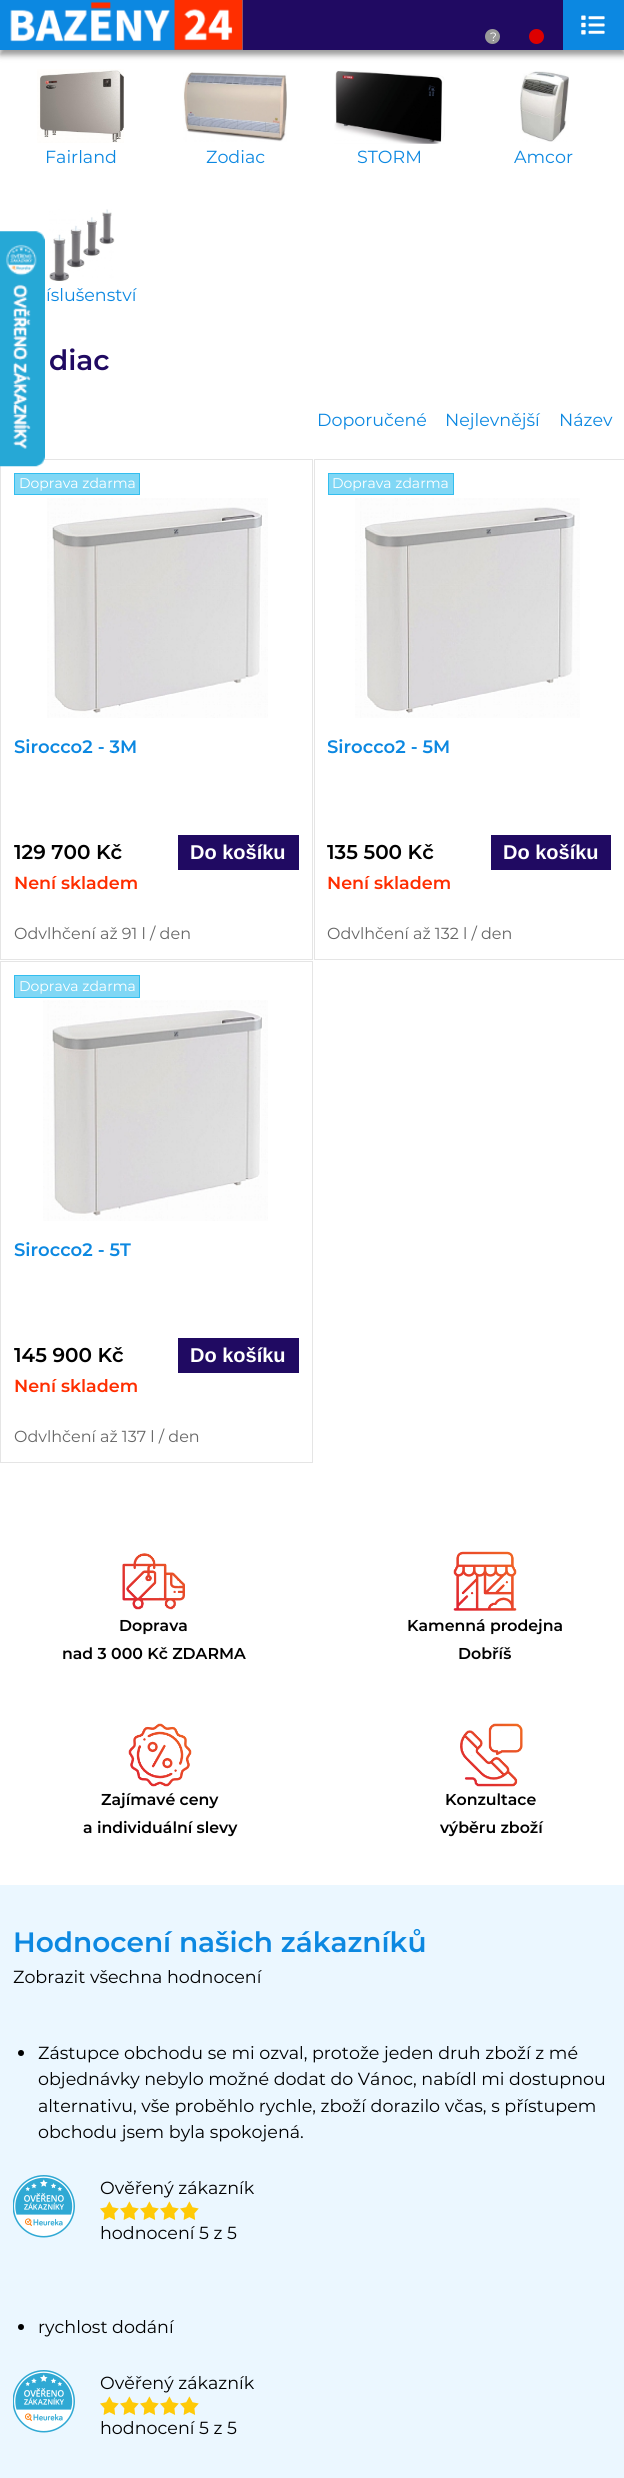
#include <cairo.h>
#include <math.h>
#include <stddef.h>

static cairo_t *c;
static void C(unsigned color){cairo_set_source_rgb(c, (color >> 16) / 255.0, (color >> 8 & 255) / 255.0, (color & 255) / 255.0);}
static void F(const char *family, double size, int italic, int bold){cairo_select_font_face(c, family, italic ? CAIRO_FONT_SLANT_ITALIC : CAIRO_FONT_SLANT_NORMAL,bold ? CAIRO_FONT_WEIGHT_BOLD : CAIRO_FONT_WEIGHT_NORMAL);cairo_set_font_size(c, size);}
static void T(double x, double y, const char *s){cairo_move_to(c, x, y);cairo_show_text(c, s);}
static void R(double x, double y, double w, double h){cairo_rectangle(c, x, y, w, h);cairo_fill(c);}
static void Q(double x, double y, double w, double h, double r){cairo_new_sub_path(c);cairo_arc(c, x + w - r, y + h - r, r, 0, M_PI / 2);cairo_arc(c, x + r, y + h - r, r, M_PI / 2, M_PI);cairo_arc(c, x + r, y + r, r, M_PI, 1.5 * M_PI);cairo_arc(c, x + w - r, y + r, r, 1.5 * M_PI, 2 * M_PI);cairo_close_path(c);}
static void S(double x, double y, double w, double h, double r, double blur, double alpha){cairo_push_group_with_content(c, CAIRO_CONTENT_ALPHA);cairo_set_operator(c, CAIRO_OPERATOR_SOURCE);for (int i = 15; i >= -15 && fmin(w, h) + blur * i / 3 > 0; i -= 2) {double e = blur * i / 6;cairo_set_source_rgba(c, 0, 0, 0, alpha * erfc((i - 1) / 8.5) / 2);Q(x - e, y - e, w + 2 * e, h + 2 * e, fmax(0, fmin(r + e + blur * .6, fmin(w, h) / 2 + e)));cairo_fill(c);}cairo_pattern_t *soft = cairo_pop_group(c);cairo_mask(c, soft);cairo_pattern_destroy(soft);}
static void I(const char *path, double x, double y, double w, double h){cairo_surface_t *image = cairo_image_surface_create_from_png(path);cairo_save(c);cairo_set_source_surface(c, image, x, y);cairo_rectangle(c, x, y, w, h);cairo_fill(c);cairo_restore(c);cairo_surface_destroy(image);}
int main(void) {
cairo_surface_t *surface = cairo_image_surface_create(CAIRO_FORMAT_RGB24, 624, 2478);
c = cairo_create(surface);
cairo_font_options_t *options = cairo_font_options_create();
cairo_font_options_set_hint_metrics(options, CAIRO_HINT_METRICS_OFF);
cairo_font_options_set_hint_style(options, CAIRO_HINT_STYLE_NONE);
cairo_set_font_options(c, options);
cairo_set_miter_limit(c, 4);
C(0xffffff);
cairo_paint(c);
C(0x000000);
S(0,5,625,50,0,3,.4);
C(0x200a62);
R(243,0,320,50);
C(0x0c88e1);
R(0,0,243,50);
I("1.png",10,0,233,50);
C(0x999999);
cairo_arc(c,492.5,36.5,7.5,0,2 * M_PI);
cairo_fill(c);
F("Montserrat",12,0,0);
C(0xffffff);
T(490,41,"?");
C(0xdd0000);
cairo_new_path(c);
cairo_arc(c,536.5,36.5,7.5,0,2 * M_PI);
cairo_fill(c);
C(0x0c88e1);
R(563,0,61,50);
I("2.png",581,15,24,20);
I("3.png",37,69,87,74);
F("Montserrat",17.5,0,0);
T(45,163,"Fairland");
I("4.png",183,72,104,70);
T(206,163,"Zodiac");
I("5.png",334,70,111,74);
T(357,163,"STORM");
I("6.png",520,71,49,71);
T(514,163,"Amcor");
I("7.png",49,209,66,72);
T(46,301,"íslušenství");
F("Montserrat SemiBold",28,0,0);
C(0x200a62);
T(49,370,"diac");
F("Montserrat",17.5,0,0);
C(0x0c88e1);
T(317,426,"Doporučené");
T(445,426,"Nejlevnější");
T(559,426,"Název");
cairo_rectangle(c,.5,459.5,312,500);
C(0xe5e5e5);
cairo_set_line_width(c,1);
cairo_stroke(c);
C(0x80d7f5);
cairo_rectangle(c,14.5,473.5,125,21);
cairo_fill_preserve(c);
C(0x33beef);
cairo_stroke(c);
F("Montserrat",14,0,0);
C(0xffffff);
T(19,488,"Doprava zdarma");
I("8.png",47,498,221,220);
F("Montserrat SemiBold",18,0,0);
C(0x0c88e1);
T(14,753,"Sirocco2 - 3M");
F("Montserrat SemiBold",20,0,0);
C(0x000000);
T(14,859,"129 700 Kč");
C(0x200a62);
R(178,835,121,35);
F("Liberation Sans",20,0,1);
C(0xffffff);
T(190,859,"Do košíku");
F("Montserrat SemiBold",17.5,0,0);
C(0xff2e00);
T(14,889,"Není skladem");
F("Montserrat",16,0,0);
C(0x666666);
T(14,939,"Odvlhčení až 91 l / den");
cairo_rectangle(c,314.5,459.5,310,500);
C(0xe5e5e5);
cairo_stroke(c);
C(0x80d7f5);
cairo_rectangle(c,328.5,473.5,125,21);
cairo_fill_preserve(c);
C(0x33beef);
cairo_stroke(c);
F("Montserrat",14,0,0);
C(0xffffff);
T(332,488,"Doprava zdarma");
I("9.png",355,498,225,220);
cairo_save(c);
cairo_rectangle(c,328,735,283,75);
cairo_clip(c);
F("Montserrat SemiBold",18,0,0);
C(0x0c88e1);
T(327,753,"Sirocco2 - 5M");
cairo_restore(c);
F("Montserrat SemiBold",20,0,0);
C(0x000000);
T(327,859,"135 500 Kč");
C(0x200a62);
R(491,835,120,35);
F("Liberation Sans",20,0,1);
C(0xffffff);
T(503,859,"Do košíku");
F("Montserrat SemiBold",17.5,0,0);
C(0xff2e00);
T(327,889,"Není skladem");
F("Montserrat",16,0,0);
C(0x666666);
T(327,939,"Odvlhčení až 132 l / den");
cairo_rectangle(c,.5,961.5,312,501);
C(0xe5e5e5);
cairo_stroke(c);
C(0x80d7f5);
cairo_rectangle(c,14.5,975.5,125,22);
cairo_fill_preserve(c);
C(0x33beef);
cairo_stroke(c);
F("Montserrat",14,0,0);
C(0xffffff);
T(19,991,"Doprava zdarma");
I("10.png",43,1000,225,221);
F("Montserrat SemiBold",18,0,0);
C(0x0c88e1);
T(14,1256,"Sirocco2 - 5T");
F("Montserrat SemiBold",20,0,0);
C(0x000000);
T(14,1362,"145 900 Kč");
C(0x200a62);
R(178,1338,121,35);
F("Liberation Sans",20,0,1);
C(0xffffff);
T(190,1362,"Do košíku");
F("Montserrat SemiBold",17.5,0,0);
C(0xff2e00);
T(14,1392,"Není skladem");
F("Montserrat",16,0,0);
C(0x666666);
T(14,1442,"Odvlhčení až 137 l / den");
I("11.png",122,1553,63,57);
F("Montserrat SemiBold",15.75,0,0);
C(0x000000);
T(119,1631,"Doprava");
T(62,1659,"nad 3 000 Kč ZDARMA");
I("12.png",453,1551,64,60);
T(407,1631,"Kamenná prodejna");
T(458,1659,"Dobříš");
I("13.png",128,1723,64,64);
T(101,1805,"Zajímavé ceny");
T(83,1833,"a individuální slevy");
I("14.png",460,1723,63,64);
T(445,1805,"Konzultace");
T(440,1833,"výběru zboží");
C(0xebf7ff);
R(0,1885,624,593);
F("Montserrat SemiBold",28,0,0);
C(0x0c88e1);
T(13,1952,"Hodnocení našich zákazníků");
F("Montserrat",17.5,0,0);
C(0x000000);
T(13,1983,"Zobrazit všechna hodnocení");
cairo_new_path(c);
cairo_arc(c,21,2053,3,0,2 * M_PI);
cairo_fill(c);
T(38,2059,"Zástupce obchodu se mi ozval, protože jeden druh zboží z mé");
T(38,2085,"objednávky nebylo možné dodat do Vánoc, nabídl mi dostupnou");
T(38,2112,"alternativu, vše proběhlo rychle, zboží dorazilo včas, s přístupem");
T(38,2138,"obchodu jsem byla spokojená.");
I("15.png",13,2175,62,63);
T(100,2194,"Ověřený zákazník");
I("16.png",100,2202,99,18);
I("17.png",100,2201,99,19);
T(100,2239,"hodnocení 5 z 5");
cairo_new_path(c);
cairo_arc(c,21,2327,3,0,2 * M_PI);
cairo_fill(c);
T(38,2333,"rychlost dodání");
I("15.png",13,2370,62,63);
T(100,2389,"Ověřený zákazník");
I("16.png",100,2397,99,18);
I("17.png",100,2396,99,19);
T(100,2434,"hodnocení 5 z 5");
I("18.png",0,231,45,236);
cairo_surface_write_to_png(surface, "o.png");
cairo_font_options_destroy(options);
cairo_destroy(c);
cairo_surface_destroy(surface);
return 0;
}
